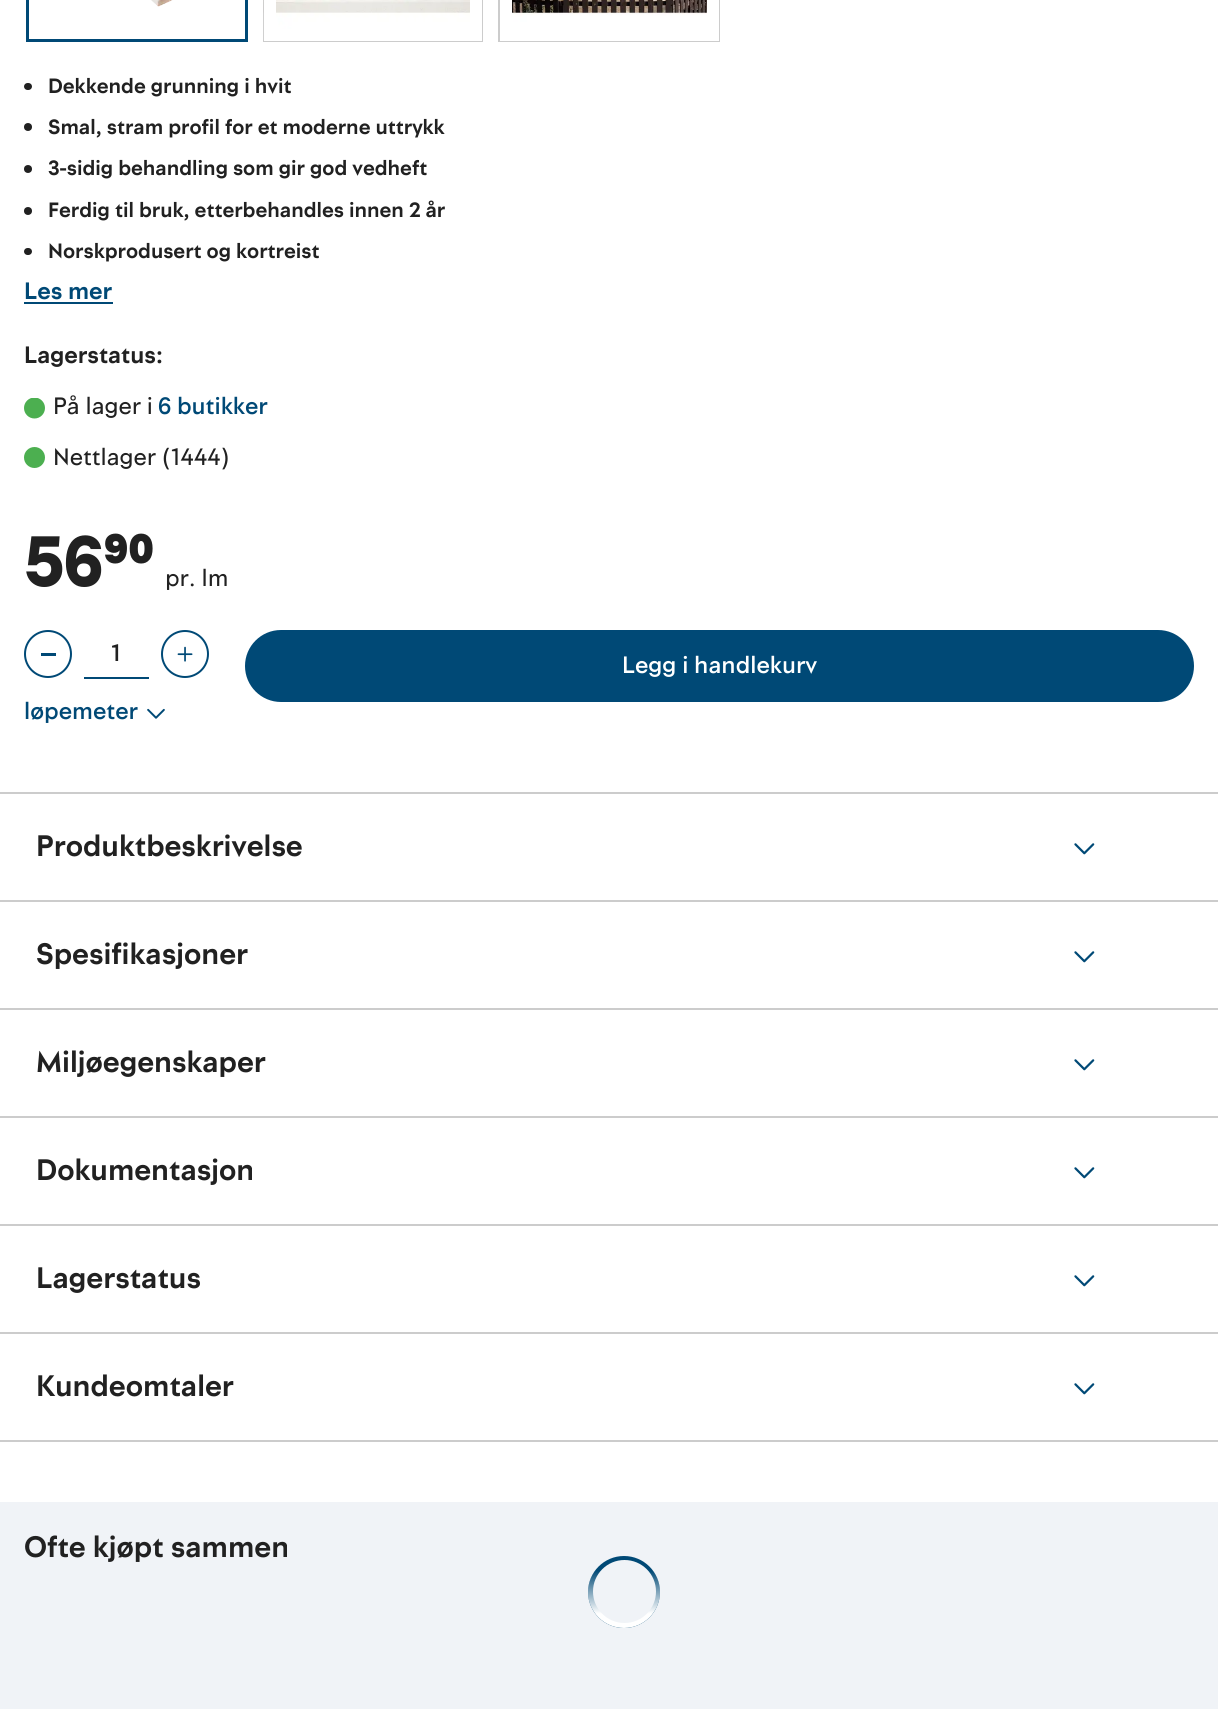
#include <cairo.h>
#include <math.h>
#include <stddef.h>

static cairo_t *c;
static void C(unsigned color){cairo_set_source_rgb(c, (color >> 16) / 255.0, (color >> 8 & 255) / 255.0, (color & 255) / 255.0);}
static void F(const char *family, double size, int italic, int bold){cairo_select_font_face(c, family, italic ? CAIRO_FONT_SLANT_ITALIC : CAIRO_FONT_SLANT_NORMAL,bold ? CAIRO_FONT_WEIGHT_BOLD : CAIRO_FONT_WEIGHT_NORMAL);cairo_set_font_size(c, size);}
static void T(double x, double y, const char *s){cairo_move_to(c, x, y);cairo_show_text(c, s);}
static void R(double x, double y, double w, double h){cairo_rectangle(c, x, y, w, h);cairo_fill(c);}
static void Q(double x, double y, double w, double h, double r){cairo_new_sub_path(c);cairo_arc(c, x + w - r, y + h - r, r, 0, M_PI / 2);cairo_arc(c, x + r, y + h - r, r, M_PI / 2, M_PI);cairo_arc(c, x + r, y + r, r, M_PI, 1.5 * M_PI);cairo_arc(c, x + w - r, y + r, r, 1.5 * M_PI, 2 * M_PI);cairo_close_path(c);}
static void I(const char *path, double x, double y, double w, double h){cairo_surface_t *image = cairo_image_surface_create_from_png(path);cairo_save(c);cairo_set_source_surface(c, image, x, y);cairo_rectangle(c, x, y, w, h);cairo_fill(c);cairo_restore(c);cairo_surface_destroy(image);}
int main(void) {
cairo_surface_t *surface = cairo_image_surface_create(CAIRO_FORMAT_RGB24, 1218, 1709);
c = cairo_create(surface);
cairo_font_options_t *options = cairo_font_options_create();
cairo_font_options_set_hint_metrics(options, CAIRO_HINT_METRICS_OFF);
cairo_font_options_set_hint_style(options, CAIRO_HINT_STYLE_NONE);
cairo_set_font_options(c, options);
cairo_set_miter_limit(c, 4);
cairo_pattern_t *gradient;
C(0xffffff);
cairo_paint(c);
cairo_rectangle(c,27.5,-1.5,219,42);
C(0x004976);
cairo_set_line_width(c,3);
cairo_stroke(c);
I("1.png",151,0,22,7);
cairo_rectangle(c,264,-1,218,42);
C(0xcccccc);
cairo_set_line_width(c,2);
cairo_stroke(c);
I("2.png",263,0,207,40);
cairo_rectangle(c,270,-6,206,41);
C(0xffffff);
cairo_set_line_width(c,12);
cairo_stroke(c);
cairo_rectangle(c,499,-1,220,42);
C(0xcccccc);
cairo_set_line_width(c,2);
cairo_stroke(c);
I("3.png",512,0,195,29);
cairo_rectangle(c,506,-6,207,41);
C(0xffffff);
cairo_set_line_width(c,12);
cairo_stroke(c);
C(0x212121);
Q(24,83,8,7,3.5);
cairo_fill(c);
F("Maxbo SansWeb",21,0,1);
T(48,93,"Dekkende grunning i hvit");
cairo_new_path(c);
cairo_arc(c,28,127,4,0,2 * M_PI);
cairo_fill(c);
T(48,134,"Smal, stram profil for et moderne uttrykk");
cairo_new_path(c);
cairo_arc(c,28,169,4,0,2 * M_PI);
cairo_fill(c);
T(48,175,"3-sidig behandling som gir god vedheft");
cairo_new_path(c);
cairo_arc(c,28,211,4,0,2 * M_PI);
cairo_fill(c);
T(48,217,"Ferdig til bruk, etterbehandles innen 2 år");
Q(24,248,8,7,3.5);
cairo_fill(c);
T(48,258,"Norskprodusert og kortreist");
F("Maxbo SansWeb",24,0,1);
C(0x004976);
T(24,299,"Les mer");
R(24,302,89,2);
C(0x212121);
T(24,363,"Lagerstatus:");
cairo_save(c);
cairo_rectangle(c,24,398,21,21);
cairo_clip(c);
C(0x4caf50);
cairo_arc(c,34.5,408,10.5,0,2 * M_PI);
cairo_fill(c);
cairo_restore(c);
F("Maxbo SansWeb",24,0,0);
T(53,414,"På lager i");
F("Maxbo SansWeb Medium",24,0,0);
C(0x004976);
T(158,414,"6 butikker");
C(0x4caf50);
cairo_new_path(c);
cairo_arc(c,34.5,457.5,10.5,0,2 * M_PI);
cairo_fill(c);
F("Maxbo SansWeb",24,0,0);
C(0x212121);
T(53,465,"Nettlager (1444)");
F("Maxbo SansWeb Black",72,0,0);
T(24,586,"56⁹⁰");
F("Maxbo SansWeb",24,0,0);
T(165,586,"pr. lm");
cairo_new_path(c);
cairo_arc(c,48,654,23,0,2 * M_PI);
C(0x004976);
cairo_set_line_width(c,2);
cairo_stroke(c);
R(41,653,15,3);
R(84,677,65,2);
F("Maxbo SansWeb Medium",24,0,0);
C(0x212121);
T(111,661,"1");
cairo_new_path(c);
cairo_arc(c,185,654,23,0,2 * M_PI);
C(0x004976);
cairo_stroke(c);
I("4.png",177,646,16,16);
T(24,719,"løpemeter");
I("5.png",147,708,18,11);
Q(245,630,949,72,36);
cairo_fill(c);
C(0xffffff);
T(622,673,"Legg i handlekurv");
C(0xcccccc);
R(0,792,1218,2);
F("Maxbo SansWeb",30,0,1);
C(0x212121);
T(36,856,"Produktbeskrivelse");
I("6.png",1074,843,21,12);
C(0xcccccc);
R(0,900,1218,2);
C(0x212121);
T(36,964,"Spesifikasjoner");
I("6.png",1074,951,21,12);
C(0xcccccc);
R(0,1008,1218,2);
C(0x212121);
T(36,1072,"Miljøegenskaper");
I("6.png",1074,1059,21,12);
C(0xcccccc);
R(0,1116,1218,2);
C(0x212121);
T(36,1180,"Dokumentasjon");
I("6.png",1074,1167,21,12);
C(0xcccccc);
R(0,1224,1218,2);
C(0x212121);
T(36,1288,"Lagerstatus");
I("6.png",1074,1275,21,12);
C(0xcccccc);
R(0,1440,1218,2);
R(0,1332,1218,2);
C(0x212121);
T(36,1396,"Kundeomtaler");
I("6.png",1074,1383,21,12);
C(0xf0f3f7);
R(0,1502,1218,207);
C(0x212121);
T(24,1557,"Ofte kjøpt sammen");
C(0x004976);
cairo_new_path(c);
cairo_arc(c,624,1592,36,0,2 * M_PI);
cairo_fill(c);
gradient = cairo_pattern_create_linear(624,1628,624,1556);
cairo_pattern_add_color_stop_rgba(gradient,.2,1,1,1,1);
cairo_pattern_add_color_stop_rgba(gradient,.8,1,1,1,0);
cairo_set_source(c,gradient);
cairo_pattern_destroy(gradient);
cairo_arc(c,624,1592,36,0,2 * M_PI);
cairo_fill(c);
C(0xf0f3f7);
cairo_arc(c,624.5,1591.5,31.5,0,2 * M_PI);
cairo_fill(c);
cairo_surface_write_to_png(surface, "o.png");
cairo_font_options_destroy(options);
cairo_destroy(c);
cairo_surface_destroy(surface);
return 0;
}
